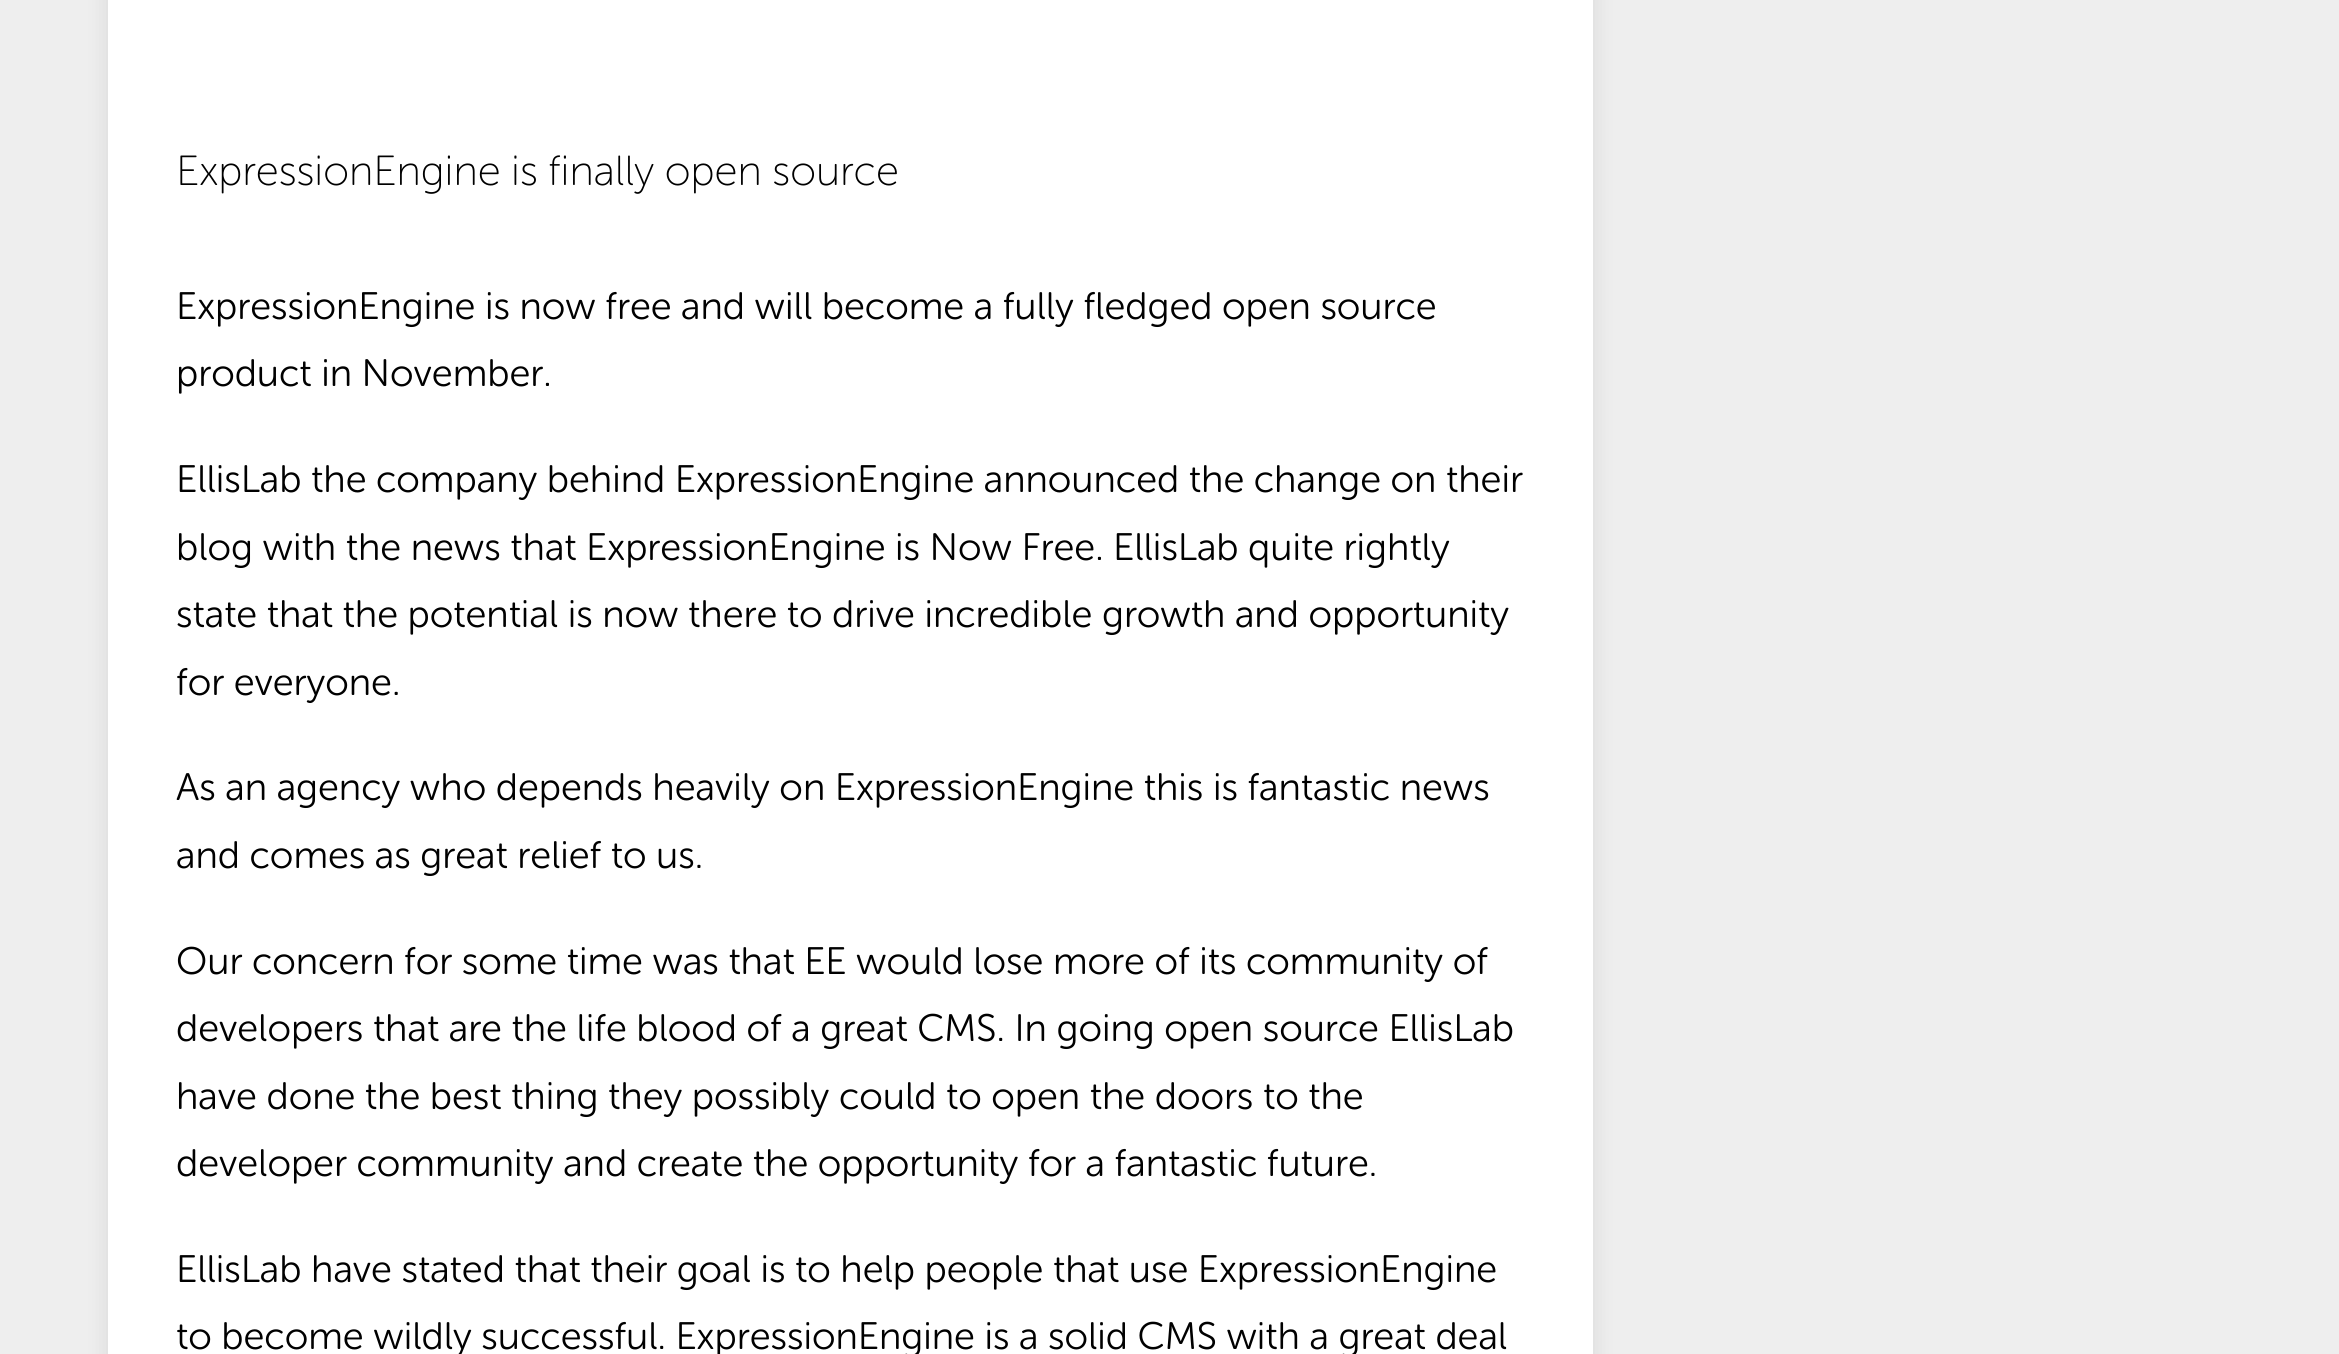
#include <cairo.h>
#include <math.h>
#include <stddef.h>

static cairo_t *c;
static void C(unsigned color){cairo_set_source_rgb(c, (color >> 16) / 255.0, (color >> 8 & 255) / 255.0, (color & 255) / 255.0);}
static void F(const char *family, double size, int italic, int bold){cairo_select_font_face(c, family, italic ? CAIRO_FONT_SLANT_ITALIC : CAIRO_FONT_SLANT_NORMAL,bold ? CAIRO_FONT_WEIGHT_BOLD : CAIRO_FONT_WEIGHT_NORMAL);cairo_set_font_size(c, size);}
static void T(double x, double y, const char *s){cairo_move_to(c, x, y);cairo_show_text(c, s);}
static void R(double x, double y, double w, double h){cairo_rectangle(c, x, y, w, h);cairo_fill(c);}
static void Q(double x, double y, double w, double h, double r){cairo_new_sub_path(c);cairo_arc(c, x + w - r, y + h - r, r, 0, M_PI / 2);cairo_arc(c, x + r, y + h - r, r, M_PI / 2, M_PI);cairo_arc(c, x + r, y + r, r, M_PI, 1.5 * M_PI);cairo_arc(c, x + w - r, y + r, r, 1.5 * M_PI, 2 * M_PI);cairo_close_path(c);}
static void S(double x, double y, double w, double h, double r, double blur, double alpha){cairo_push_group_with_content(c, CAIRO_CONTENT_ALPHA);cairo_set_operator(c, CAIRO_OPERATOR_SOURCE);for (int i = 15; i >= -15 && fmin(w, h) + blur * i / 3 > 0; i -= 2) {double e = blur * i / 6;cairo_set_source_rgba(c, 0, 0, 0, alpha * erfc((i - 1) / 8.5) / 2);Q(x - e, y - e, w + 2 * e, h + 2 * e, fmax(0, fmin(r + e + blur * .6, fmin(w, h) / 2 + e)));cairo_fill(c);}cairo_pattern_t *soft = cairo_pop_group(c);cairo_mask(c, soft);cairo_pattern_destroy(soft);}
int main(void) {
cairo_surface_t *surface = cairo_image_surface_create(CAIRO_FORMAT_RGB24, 2339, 1354);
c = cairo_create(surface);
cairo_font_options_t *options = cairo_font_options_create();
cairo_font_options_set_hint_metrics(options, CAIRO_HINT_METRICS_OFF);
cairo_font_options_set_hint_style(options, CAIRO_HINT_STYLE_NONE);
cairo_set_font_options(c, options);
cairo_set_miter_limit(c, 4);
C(0xeeeeee);
cairo_paint(c);
C(0x000000);
S(108,-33,1485,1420,0,11,.1);
C(0xffffff);
R(108,0,1485,1354);
F("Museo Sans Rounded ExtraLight",42.1,0,0);
C(0x000000);
T(176,185,"ExpressionEngine is finally open source");
F("Museo Sans Rounded Light",38.25,0,0);
T(176,319,"ExpressionEngine is now free and will become a fully fledged open source");
T(176,386,"product in November.");
T(176,492,"EllisLab the company behind ExpressionEngine announced the change on their");
T(176,560,"blog with the news that ExpressionEngine is Now Free. EllisLab quite rightly");
T(176,627,"state that the potential is now there to drive incredible growth and opportunity");
T(176,695,"for everyone.");
T(176,800,"As an agency who depends heavily on ExpressionEngine this is fantastic news");
T(176,868,"and comes as great relief to us.");
T(176,974,"Our concern for some time was that EE would lose more of its community of");
T(176,1041,"developers that are the life blood of a great CMS. In going open source EllisLab");
T(176,1109,"have done the best thing they possibly could to open the doors to the");
T(176,1176,"developer community and create the opportunity for a fantastic future.");
T(176,1282,"EllisLab have stated that their goal is to help people that use ExpressionEngine");
T(176,1349,"to become wildly successful. ExpressionEngine is a solid CMS with a great deal");
cairo_surface_write_to_png(surface, "o.png");
cairo_font_options_destroy(options);
cairo_destroy(c);
cairo_surface_destroy(surface);
return 0;
}
